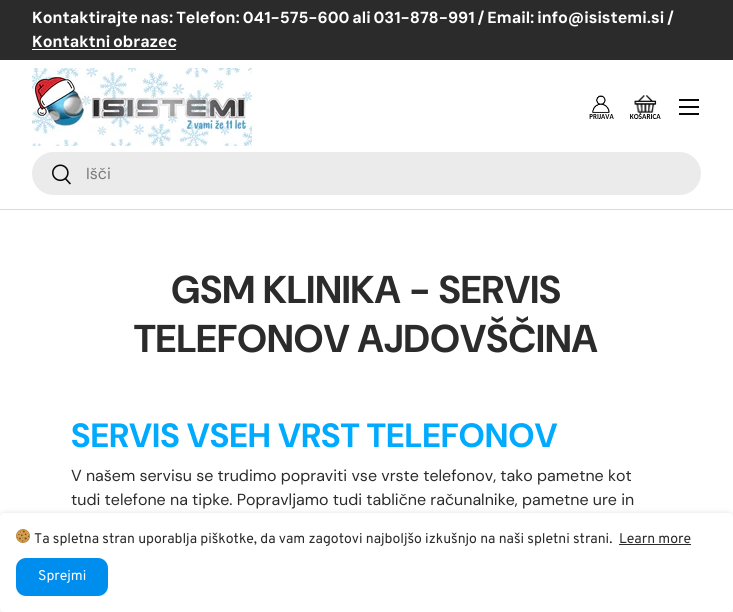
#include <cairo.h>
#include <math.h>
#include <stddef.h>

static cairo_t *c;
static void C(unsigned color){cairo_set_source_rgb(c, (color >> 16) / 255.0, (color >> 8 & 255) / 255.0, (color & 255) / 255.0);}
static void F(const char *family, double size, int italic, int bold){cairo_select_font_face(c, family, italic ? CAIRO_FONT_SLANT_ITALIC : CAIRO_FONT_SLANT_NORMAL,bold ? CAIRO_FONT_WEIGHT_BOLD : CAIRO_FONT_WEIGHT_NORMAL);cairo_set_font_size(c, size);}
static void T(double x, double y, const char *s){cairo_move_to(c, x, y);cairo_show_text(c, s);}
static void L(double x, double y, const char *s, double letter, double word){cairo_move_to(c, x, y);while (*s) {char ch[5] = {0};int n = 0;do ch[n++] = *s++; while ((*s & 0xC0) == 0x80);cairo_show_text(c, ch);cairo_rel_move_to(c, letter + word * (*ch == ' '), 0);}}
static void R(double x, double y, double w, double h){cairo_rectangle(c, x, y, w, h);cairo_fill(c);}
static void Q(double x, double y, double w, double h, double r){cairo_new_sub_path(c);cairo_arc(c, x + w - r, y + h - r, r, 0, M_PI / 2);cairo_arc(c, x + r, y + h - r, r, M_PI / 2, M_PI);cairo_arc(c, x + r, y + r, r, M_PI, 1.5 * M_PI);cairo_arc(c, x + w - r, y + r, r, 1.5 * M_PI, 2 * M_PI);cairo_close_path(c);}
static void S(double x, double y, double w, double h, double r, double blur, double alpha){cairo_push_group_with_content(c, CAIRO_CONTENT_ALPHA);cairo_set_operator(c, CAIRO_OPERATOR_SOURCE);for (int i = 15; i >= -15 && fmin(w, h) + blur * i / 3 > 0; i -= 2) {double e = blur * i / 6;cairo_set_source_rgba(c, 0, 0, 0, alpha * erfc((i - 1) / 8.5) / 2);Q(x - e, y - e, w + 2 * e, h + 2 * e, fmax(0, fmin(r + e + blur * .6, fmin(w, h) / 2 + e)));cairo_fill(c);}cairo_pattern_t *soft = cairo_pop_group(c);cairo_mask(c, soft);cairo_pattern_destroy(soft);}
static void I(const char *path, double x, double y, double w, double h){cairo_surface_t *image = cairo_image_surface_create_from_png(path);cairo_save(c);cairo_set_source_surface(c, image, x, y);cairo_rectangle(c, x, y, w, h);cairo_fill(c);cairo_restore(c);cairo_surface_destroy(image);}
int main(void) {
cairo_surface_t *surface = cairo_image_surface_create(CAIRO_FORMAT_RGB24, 733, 612);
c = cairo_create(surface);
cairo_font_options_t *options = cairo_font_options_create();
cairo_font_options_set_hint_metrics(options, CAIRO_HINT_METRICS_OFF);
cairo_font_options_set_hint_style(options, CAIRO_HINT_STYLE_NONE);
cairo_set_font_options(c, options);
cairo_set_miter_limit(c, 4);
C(0xffffff);
cairo_paint(c);
C(0x2a2b2a);
R(0,0,733,60);
F("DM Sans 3",16,0,1);
C(0xffffff);
L(32,23,"Kontaktirajte nas: Telefon: 041-575-600 ali 031-878-991 / Email: info@isistemi.si /",0,-1);
L(32,47,"Kontaktni obrazec",0,-1);
R(32,49,144,1);
C(0xdadada);
R(0,209,733,1);
I("1.png",32,68,220,78);
I("2.png",589,95,25,24);
I("3.png",630,95,31,24);
C(0x070707);
R(679,99,20,2);
R(679,113,20,2);
R(679,106,20,2);
C(0xebebeb);
Q(32,152,669,43,21.5);
cairo_fill(c);
I("4.png",52,164,19,21);
F("DM Sans",16,0,0);
C(0x797979);
T(86,179,"Išči");
F("DM Sans",38.75,0,1);
C(0x2a2b2a);
T(171,303,"GSM KLINIKA - SERVIS");
T(134,352,"TELEFONOV AJDOVŠČINA");
F("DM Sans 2",33.6,0,1);
C(0x00aaff);
T(71,447,"SERVIS VSEH VRST TELEFONOV");
F("DM Sans",16,0,0);
C(0x2a2b2a);
T(71,481,"V našem servisu se trudimo popraviti vse vrste telefonov, tako pametne kot");
T(71,505,"tudi telefone na tipke. Popravljamo tudi tablične računalnike, pametne ure in");
cairo_save(c);
cairo_set_fill_rule(c,CAIRO_FILL_RULE_EVEN_ODD);
cairo_new_path(c);
cairo_move_to(c,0,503);
cairo_line_to(c,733,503);
cairo_line_to(c,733,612);
cairo_line_to(c,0,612);
cairo_close_path(c);
cairo_move_to(c,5,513);
cairo_line_to(c,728,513);
cairo_curve_to(c,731,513,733,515,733,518);
cairo_line_to(c,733,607);
cairo_curve_to(c,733,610,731,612,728,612);
cairo_line_to(c,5,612);
cairo_curve_to(c,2,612,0,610,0,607);
cairo_line_to(c,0,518);
cairo_curve_to(c,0,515,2,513,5,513);
cairo_close_path(c);
cairo_clip(c);
C(0x000000);
S(0,513,733,99,5,3,.12);
cairo_restore(c);
I("5.png",16,529,14,14);
F("Overpass",14,0,0);
T(34,543,"Ta spletna stran uporablja piškotke, da vam zagotovi najboljšo izkušnjo na naši spletni strani.");
T(619,543,"Learn more");
C(0x2d2d2d);
R(619,544,72,1);
C(0x008eee);
Q(16,558,92,38,10);
cairo_fill(c);
C(0xffffff);
T(38,580,"Sprejmi");
cairo_surface_write_to_png(surface, "o.png");
cairo_font_options_destroy(options);
cairo_destroy(c);
cairo_surface_destroy(surface);
return 0;
}
